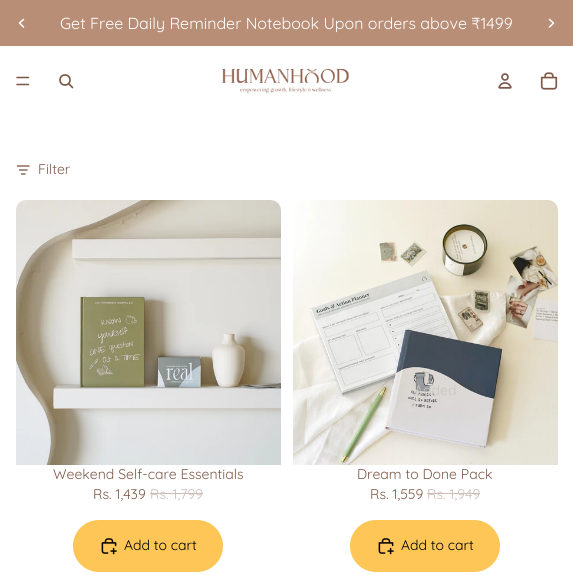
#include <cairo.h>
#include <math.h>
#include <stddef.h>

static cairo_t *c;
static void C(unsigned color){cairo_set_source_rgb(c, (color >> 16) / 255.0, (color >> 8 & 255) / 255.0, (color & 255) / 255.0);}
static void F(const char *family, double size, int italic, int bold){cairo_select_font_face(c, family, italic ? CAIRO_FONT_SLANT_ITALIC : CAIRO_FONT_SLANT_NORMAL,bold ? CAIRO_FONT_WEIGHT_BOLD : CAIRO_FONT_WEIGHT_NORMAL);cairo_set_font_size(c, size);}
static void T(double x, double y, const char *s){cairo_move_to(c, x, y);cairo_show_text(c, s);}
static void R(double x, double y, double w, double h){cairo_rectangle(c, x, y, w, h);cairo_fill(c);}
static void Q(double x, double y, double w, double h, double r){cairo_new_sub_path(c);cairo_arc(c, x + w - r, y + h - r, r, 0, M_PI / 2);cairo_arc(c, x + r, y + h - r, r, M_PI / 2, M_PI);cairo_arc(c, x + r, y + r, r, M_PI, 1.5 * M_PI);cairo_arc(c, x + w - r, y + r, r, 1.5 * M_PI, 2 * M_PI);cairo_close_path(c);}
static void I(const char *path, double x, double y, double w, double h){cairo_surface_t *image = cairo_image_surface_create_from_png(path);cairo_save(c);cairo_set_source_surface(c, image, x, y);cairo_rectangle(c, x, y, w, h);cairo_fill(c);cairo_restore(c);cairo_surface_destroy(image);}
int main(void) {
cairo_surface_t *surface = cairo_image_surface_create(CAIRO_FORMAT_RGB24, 573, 575);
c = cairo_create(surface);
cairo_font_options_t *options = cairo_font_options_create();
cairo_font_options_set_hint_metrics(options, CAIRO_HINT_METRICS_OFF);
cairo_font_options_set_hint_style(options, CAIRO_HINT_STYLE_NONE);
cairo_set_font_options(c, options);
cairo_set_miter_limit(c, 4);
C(0xffffff);
cairo_paint(c);
C(0xb98e77);
R(0,0,573,46);
F("Quicksand",16,0,0);
C(0xffffff);
T(60,29,"Get Free Daily Reminder Notebook Upon orders above ₹1499");
cairo_new_path(c);
cairo_move_to(c,23.5,19.5);
cairo_line_to(c,19.5,23);
cairo_line_to(c,23.5,27);
cairo_set_line_width(c,1.5);
cairo_set_line_cap(c,CAIRO_LINE_CAP_ROUND);
cairo_set_line_join(c,CAIRO_LINE_JOIN_ROUND);
cairo_stroke(c);
cairo_new_path(c);
cairo_move_to(c,549.5,19.5);
cairo_line_to(c,553.5,23);
cairo_line_to(c,549.5,27);
cairo_stroke(c);
cairo_new_path(c);
cairo_move_to(c,17,77.5);
cairo_line_to(c,28.5,77.5);
cairo_move_to(c,17,84.5);
cairo_line_to(c,28.5,84.5);
C(0x7e5949);
cairo_set_line_join(c,CAIRO_LINE_JOIN_MITER);
cairo_stroke(c);
cairo_arc(c,65,80,5,0,2 * M_PI);
cairo_set_line_width(c,1.7);
cairo_set_line_cap(c,CAIRO_LINE_CAP_BUTT);
cairo_stroke(c);
cairo_new_path(c);
cairo_move_to(c,69,84);
cairo_line_to(c,72.5,87.5);
cairo_set_line_cap(c,CAIRO_LINE_CAP_ROUND);
cairo_set_line_join(c,CAIRO_LINE_JOIN_ROUND);
cairo_stroke(c);
I("1.png",222,68,127,26);
I("2.png",498,73,14,16);
I("3.png",540,72,18,18);
cairo_new_path(c);
cairo_move_to(c,29,166);
cairo_line_to(c,17.5,166);
cairo_move_to(c,27,170);
cairo_line_to(c,19.5,170);
cairo_move_to(c,21.5,174);
cairo_line_to(c,25,174);
cairo_set_line_width(c,1.4);
cairo_set_line_join(c,CAIRO_LINE_JOIN_MITER);
cairo_stroke(c);
F("Quicksand",14,0,0);
T(38,174,"Filter");
I("4.png",16,200,265,265);
T(53,479,"Weekend Self-care Essentials");
T(93,499,"Rs. 1,439");
C(0xcbbdb6);
T(150,499,"Rs. 1,799");
R(150,493,53,1);
C(0xfdc656);
Q(73,520,150,52,26);
cairo_fill(c);
I("5.png",101,538,16,17);
C(0x000000);
T(124,550,"Add to cart");
I("6.png",293,200,265,265);
C(0xfdc656);
Q(350,520,150,52,26);
cairo_fill(c);
C(0xc9c5c3);
T(414,395,"Added");
I("5.png",378,538,16,17);
C(0x000000);
T(401,550,"Add to cart");
C(0x7e5949);
T(357,479,"Dream to Done Pack");
T(370,499,"Rs. 1,559");
C(0xcbbdb6);
T(427,499,"Rs. 1,949");
R(427,493,53,1);
cairo_surface_write_to_png(surface, "o.png");
cairo_font_options_destroy(options);
cairo_destroy(c);
cairo_surface_destroy(surface);
return 0;
}
